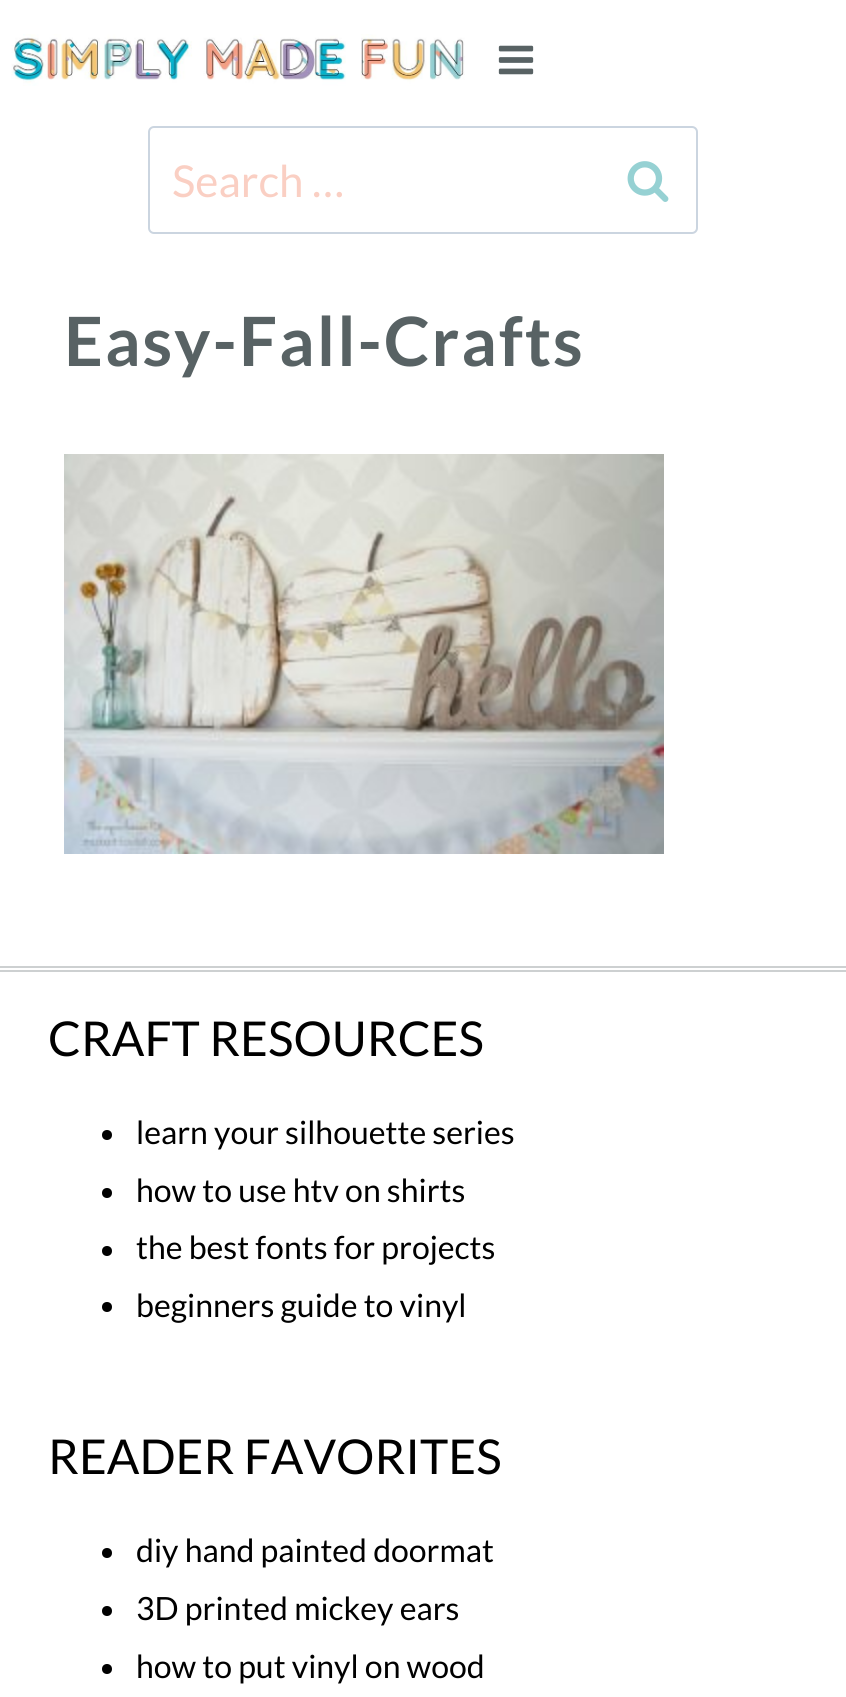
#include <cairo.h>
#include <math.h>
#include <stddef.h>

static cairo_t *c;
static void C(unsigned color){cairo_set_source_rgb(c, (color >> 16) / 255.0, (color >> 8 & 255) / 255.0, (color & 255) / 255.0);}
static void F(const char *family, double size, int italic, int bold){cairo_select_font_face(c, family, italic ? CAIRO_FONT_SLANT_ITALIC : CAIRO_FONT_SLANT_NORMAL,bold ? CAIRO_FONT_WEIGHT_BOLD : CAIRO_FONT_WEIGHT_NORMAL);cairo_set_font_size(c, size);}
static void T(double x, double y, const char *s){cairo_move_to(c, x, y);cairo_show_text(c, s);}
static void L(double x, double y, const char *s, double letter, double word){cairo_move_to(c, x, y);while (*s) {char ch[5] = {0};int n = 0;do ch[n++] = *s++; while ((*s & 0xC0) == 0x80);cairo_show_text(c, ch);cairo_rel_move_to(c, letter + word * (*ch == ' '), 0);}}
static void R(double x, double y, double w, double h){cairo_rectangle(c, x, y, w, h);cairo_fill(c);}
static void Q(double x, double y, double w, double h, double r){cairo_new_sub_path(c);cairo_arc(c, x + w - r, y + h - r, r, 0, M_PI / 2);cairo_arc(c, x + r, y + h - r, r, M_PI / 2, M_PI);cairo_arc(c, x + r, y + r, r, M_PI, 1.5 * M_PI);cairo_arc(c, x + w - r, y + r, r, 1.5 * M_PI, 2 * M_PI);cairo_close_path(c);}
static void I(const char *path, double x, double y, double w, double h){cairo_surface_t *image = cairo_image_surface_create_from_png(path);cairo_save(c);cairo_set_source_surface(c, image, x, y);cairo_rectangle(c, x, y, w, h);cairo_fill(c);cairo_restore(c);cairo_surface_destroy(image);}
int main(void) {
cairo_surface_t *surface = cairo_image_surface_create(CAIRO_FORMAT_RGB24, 846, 1697);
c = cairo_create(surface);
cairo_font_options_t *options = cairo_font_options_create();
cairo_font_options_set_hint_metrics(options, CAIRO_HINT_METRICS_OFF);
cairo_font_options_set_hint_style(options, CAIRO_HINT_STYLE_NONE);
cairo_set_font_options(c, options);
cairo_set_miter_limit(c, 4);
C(0xffffff);
cairo_paint(c);
I("1.png",11,34,454,52);
I("2.png",498,45,36,30);
Q(149,127,548,106,5);
C(0xcbd5e0);
cairo_stroke(c);
F("Lato",44,0,0);
C(0xfacfc3);
T(172,197,"Search …");
I("3.png",627,161,42,41);
F("Lato",68,0,1);
C(0x586264);
L(64,366,"Easy-Fall-Crafts",2,0);
I("4.png",64,454,600,400);
C(0xcdd0d1);
R(0,966,846,2);
R(0,970,846,2);
F("Lato",48,0,0);
C(0x000000);
T(48,1056,"CRAFT RESOURCES");
cairo_new_path(c);
cairo_arc(c,107,1135,5,0,2 * M_PI);
cairo_fill(c);
F("Lato",32,0,0);
T(136,1144,"learn your silhouette series");
cairo_new_path(c);
cairo_arc(c,107,1193,5,0,2 * M_PI);
cairo_fill(c);
T(136,1202,"how to use htv on shirts");
cairo_new_path(c);
cairo_arc(c,107,1251,5,0,2 * M_PI);
cairo_fill(c);
T(136,1259,"the best fonts for projects");
cairo_new_path(c);
cairo_arc(c,107,1307,5,0,2 * M_PI);
cairo_fill(c);
T(136,1317,"beginners guide to vinyl");
F("Lato",48,0,0);
T(48,1474,"READER FAVORITES");
cairo_new_path(c);
cairo_arc(c,107,1553,5,0,2 * M_PI);
cairo_fill(c);
F("Lato",32,0,0);
T(136,1562,"diy hand painted doormat");
cairo_new_path(c);
cairo_arc(c,107,1611,5,0,2 * M_PI);
cairo_fill(c);
T(136,1620,"3D printed mickey ears");
cairo_new_path(c);
cairo_arc(c,107,1669,5,0,2 * M_PI);
cairo_fill(c);
T(136,1678,"how to put vinyl on wood");
cairo_surface_write_to_png(surface, "o.png");
cairo_font_options_destroy(options);
cairo_destroy(c);
cairo_surface_destroy(surface);
return 0;
}
